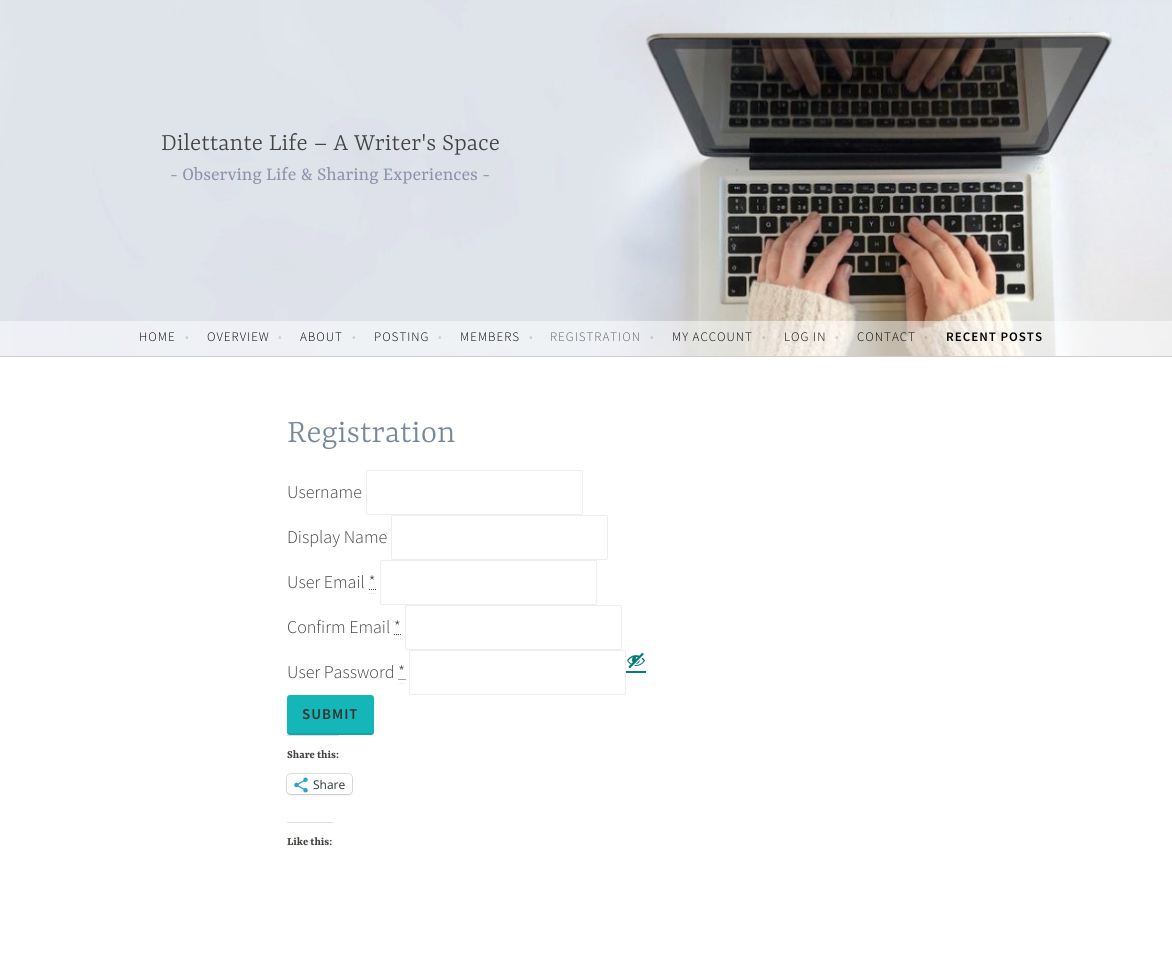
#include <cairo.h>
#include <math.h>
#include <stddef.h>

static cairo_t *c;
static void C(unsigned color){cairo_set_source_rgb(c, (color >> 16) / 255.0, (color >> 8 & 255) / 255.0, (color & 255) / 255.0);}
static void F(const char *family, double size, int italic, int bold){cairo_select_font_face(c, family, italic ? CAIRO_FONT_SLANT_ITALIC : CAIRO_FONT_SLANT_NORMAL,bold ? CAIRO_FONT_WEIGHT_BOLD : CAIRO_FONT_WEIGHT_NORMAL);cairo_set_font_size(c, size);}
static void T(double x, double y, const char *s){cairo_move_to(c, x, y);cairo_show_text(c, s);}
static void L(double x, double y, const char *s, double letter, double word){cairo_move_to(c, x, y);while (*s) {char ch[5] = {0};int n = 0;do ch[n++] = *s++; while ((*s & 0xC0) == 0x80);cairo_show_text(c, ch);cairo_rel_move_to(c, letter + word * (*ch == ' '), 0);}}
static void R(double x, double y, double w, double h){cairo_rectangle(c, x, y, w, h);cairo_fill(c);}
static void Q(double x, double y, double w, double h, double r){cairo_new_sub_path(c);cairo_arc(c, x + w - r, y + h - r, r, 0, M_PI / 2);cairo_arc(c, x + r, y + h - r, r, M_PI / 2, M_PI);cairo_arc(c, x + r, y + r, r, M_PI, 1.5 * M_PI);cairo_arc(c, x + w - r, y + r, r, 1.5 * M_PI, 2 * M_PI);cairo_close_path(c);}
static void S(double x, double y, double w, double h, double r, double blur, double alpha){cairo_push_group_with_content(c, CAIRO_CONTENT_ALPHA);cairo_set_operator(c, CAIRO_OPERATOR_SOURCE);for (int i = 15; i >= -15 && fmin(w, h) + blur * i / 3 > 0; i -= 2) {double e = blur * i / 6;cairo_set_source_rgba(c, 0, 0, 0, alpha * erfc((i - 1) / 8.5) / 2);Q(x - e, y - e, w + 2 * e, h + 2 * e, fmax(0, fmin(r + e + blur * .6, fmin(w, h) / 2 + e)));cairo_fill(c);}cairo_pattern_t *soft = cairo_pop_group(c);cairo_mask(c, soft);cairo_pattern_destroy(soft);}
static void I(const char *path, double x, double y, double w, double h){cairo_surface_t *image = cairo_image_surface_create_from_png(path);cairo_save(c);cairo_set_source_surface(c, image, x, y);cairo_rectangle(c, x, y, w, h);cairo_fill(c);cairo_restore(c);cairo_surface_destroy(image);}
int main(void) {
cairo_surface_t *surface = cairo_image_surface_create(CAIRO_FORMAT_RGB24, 1172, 958);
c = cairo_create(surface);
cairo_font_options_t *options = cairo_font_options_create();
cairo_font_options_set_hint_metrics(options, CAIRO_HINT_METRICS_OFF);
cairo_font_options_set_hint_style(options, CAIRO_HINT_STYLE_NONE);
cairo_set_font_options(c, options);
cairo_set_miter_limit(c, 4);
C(0xffffff);
cairo_paint(c);
I("1.png",0,0,1172,356);
F("Yrsa Light",26,0,0);
C(0x444340);
T(161,150,"Dilettante Life – A Writer's Space");
F("Yrsa",20,0,0);
C(0x8c92ac);
T(170,180,"- Observing Life & Sharing Experiences -");
cairo_set_source_rgba(c,1,1,1,0.5);
R(0,321,1172,35);
C(0xcccccc);
R(0,356,1172,1);
F("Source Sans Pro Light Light",13,0,0);
C(0x000000);
L(139,341,"HOME",1,0);
C(0xcbcdd0);
T(185,341,"•");
C(0x000000);
L(207,341,"OVERVIEW",1,0);
C(0xcbcdd0);
T(278,341,"•");
C(0x000000);
L(300,341,"ABOUT",1,0);
C(0xcbcdd0);
T(352,341,"•");
C(0x000000);
L(374,341,"POSTING",1,0);
C(0xcbcdd0);
T(438,341,"•");
C(0x000000);
L(460,341,"MEMBERS",1,0);
C(0xcbcdd0);
T(529,341,"•");
C(0x5f6062);
L(550,341,"REGISTRATION",1,0);
C(0xc5c7ca);
T(650,341,"•");
C(0x000000);
L(672,341,"MY ACCOUNT",1,0);
C(0xc6c0b6);
T(762,341,"•");
C(0x000000);
L(784,341,"LOG IN",1,0);
C(0xd2cdc6);
T(835,341,"•");
C(0x000000);
L(857,341,"CONTACT",1,0);
C(0xbbb0a5);
T(924,341,"•");
F("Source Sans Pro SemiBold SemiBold",13,0,0);
C(0x000000);
L(946,341,"RECENT POSTS",1,0);
F("Yrsa Light",35,0,0);
C(0x778899);
T(287,442,"Registration");
F("Source Sans Pro Light Light",18,0,0);
C(0x444340);
T(287,498,"Username");
Q(366.5,470.5,216,44,1.5);
C(0xeeeeee);
cairo_set_line_width(c,1);
cairo_stroke(c);
C(0x444340);
T(287,543,"Display Name");
Q(391.5,515.5,216,44,1.5);
C(0xeeeeee);
cairo_stroke(c);
C(0x444340);
T(287,588,"User Email *");
cairo_new_path(c);
cairo_move_to(c,369,593.5);
cairo_line_to(c,370,593.5);
cairo_move_to(c,371,593.5);
cairo_line_to(c,372,593.5);
cairo_move_to(c,373,593.5);
cairo_line_to(c,374,593.5);
cairo_move_to(c,375,593.5);
cairo_line_to(c,376,593.5);
C(0xe6e6e6);
cairo_stroke(c);
cairo_new_path(c);
cairo_move_to(c,369,589.5);
cairo_line_to(c,376,589.5);
C(0x444340);
cairo_set_dash(c,(double[]){1,1},2,0);
cairo_stroke(c);
Q(380.5,560.5,216,44,1.5);
C(0xeeeeee);
cairo_set_dash(c,NULL,0,0);
cairo_stroke(c);
C(0x444340);
T(287,633,"Confirm Email *");
cairo_new_path(c);
cairo_move_to(c,394,638.5);
cairo_line_to(c,395,638.5);
cairo_move_to(c,396,638.5);
cairo_line_to(c,397,638.5);
cairo_move_to(c,398,638.5);
cairo_line_to(c,399,638.5);
cairo_move_to(c,400,638.5);
cairo_line_to(c,401,638.5);
C(0xe6e6e6);
cairo_stroke(c);
cairo_new_path(c);
cairo_move_to(c,394,634.5);
cairo_line_to(c,401.5,634.5);
C(0x444340);
cairo_set_dash(c,(double[]){1,1},2,0);
cairo_stroke(c);
Q(405.5,605.5,216,44,1.5);
C(0xeeeeee);
cairo_set_dash(c,NULL,0,0);
cairo_stroke(c);
C(0x444340);
T(287,678,"User Password *");
cairo_new_path(c);
cairo_move_to(c,398,683.5);
cairo_line_to(c,406,683.5);
C(0xe6e6e6);
cairo_set_dash(c,(double[]){1,1},2,0);
cairo_stroke(c);
cairo_new_path(c);
cairo_move_to(c,398.5,679.5);
cairo_line_to(c,405.5,679.5);
C(0x444340);
cairo_stroke(c);
Q(409.5,650.5,216,44,1.5);
C(0xeeeeee);
cairo_set_dash(c,NULL,0,0);
cairo_stroke(c);
I("2.png",627,653,18,15);
C(0x077a7c);
R(626,671,20,2);
C(0x15b6b8);
Q(287,695,87,40,3);
cairo_fill(c);
cairo_set_source_rgba(c,0,0,0,0.1);
cairo_new_path(c);
cairo_move_to(c,287,730);
cairo_line_to(c,287,732);
cairo_curve_to(c,287,734,288,735,290,735);
cairo_line_to(c,371,735);
cairo_curve_to(c,373,735,374,734,374,732);
cairo_line_to(c,374,730);
cairo_curve_to(c,374,732,373,733,371,733);
cairo_line_to(c,290,733);
cairo_curve_to(c,288,733,287,732,287,730);
cairo_close_path(c);
cairo_fill(c);
F("Source Sans Pro SemiBold SemiBold",15,0,0);
C(0x333333);
L(302,719,"SUBMIT",1,0);
C(0xdcdcde);
R(287,735,52,1);
F("Yrsa",12,0,1);
C(0x444340);
T(287,758,"Share this:");
Q(286.5,773.5,66,21,4.5);
C(0xe0e0e0);
cairo_stroke(c);
C(0x000000);
S(287,775,65,20,4,1,.12);
C(0xffffff);
Q(287,774,65,20,4);
cairo_fill(c);
I("3.png",294,777,14,16);
F("Open Sans",12,0,0);
C(0x2c3338);
T(313,789,"Share");
C(0xdcdcde);
R(287,822,46,1);
F("Yrsa",12,0,1);
C(0x444340);
T(287,845,"Like this:");
cairo_surface_write_to_png(surface, "o.png");
cairo_font_options_destroy(options);
cairo_destroy(c);
cairo_surface_destroy(surface);
return 0;
}
